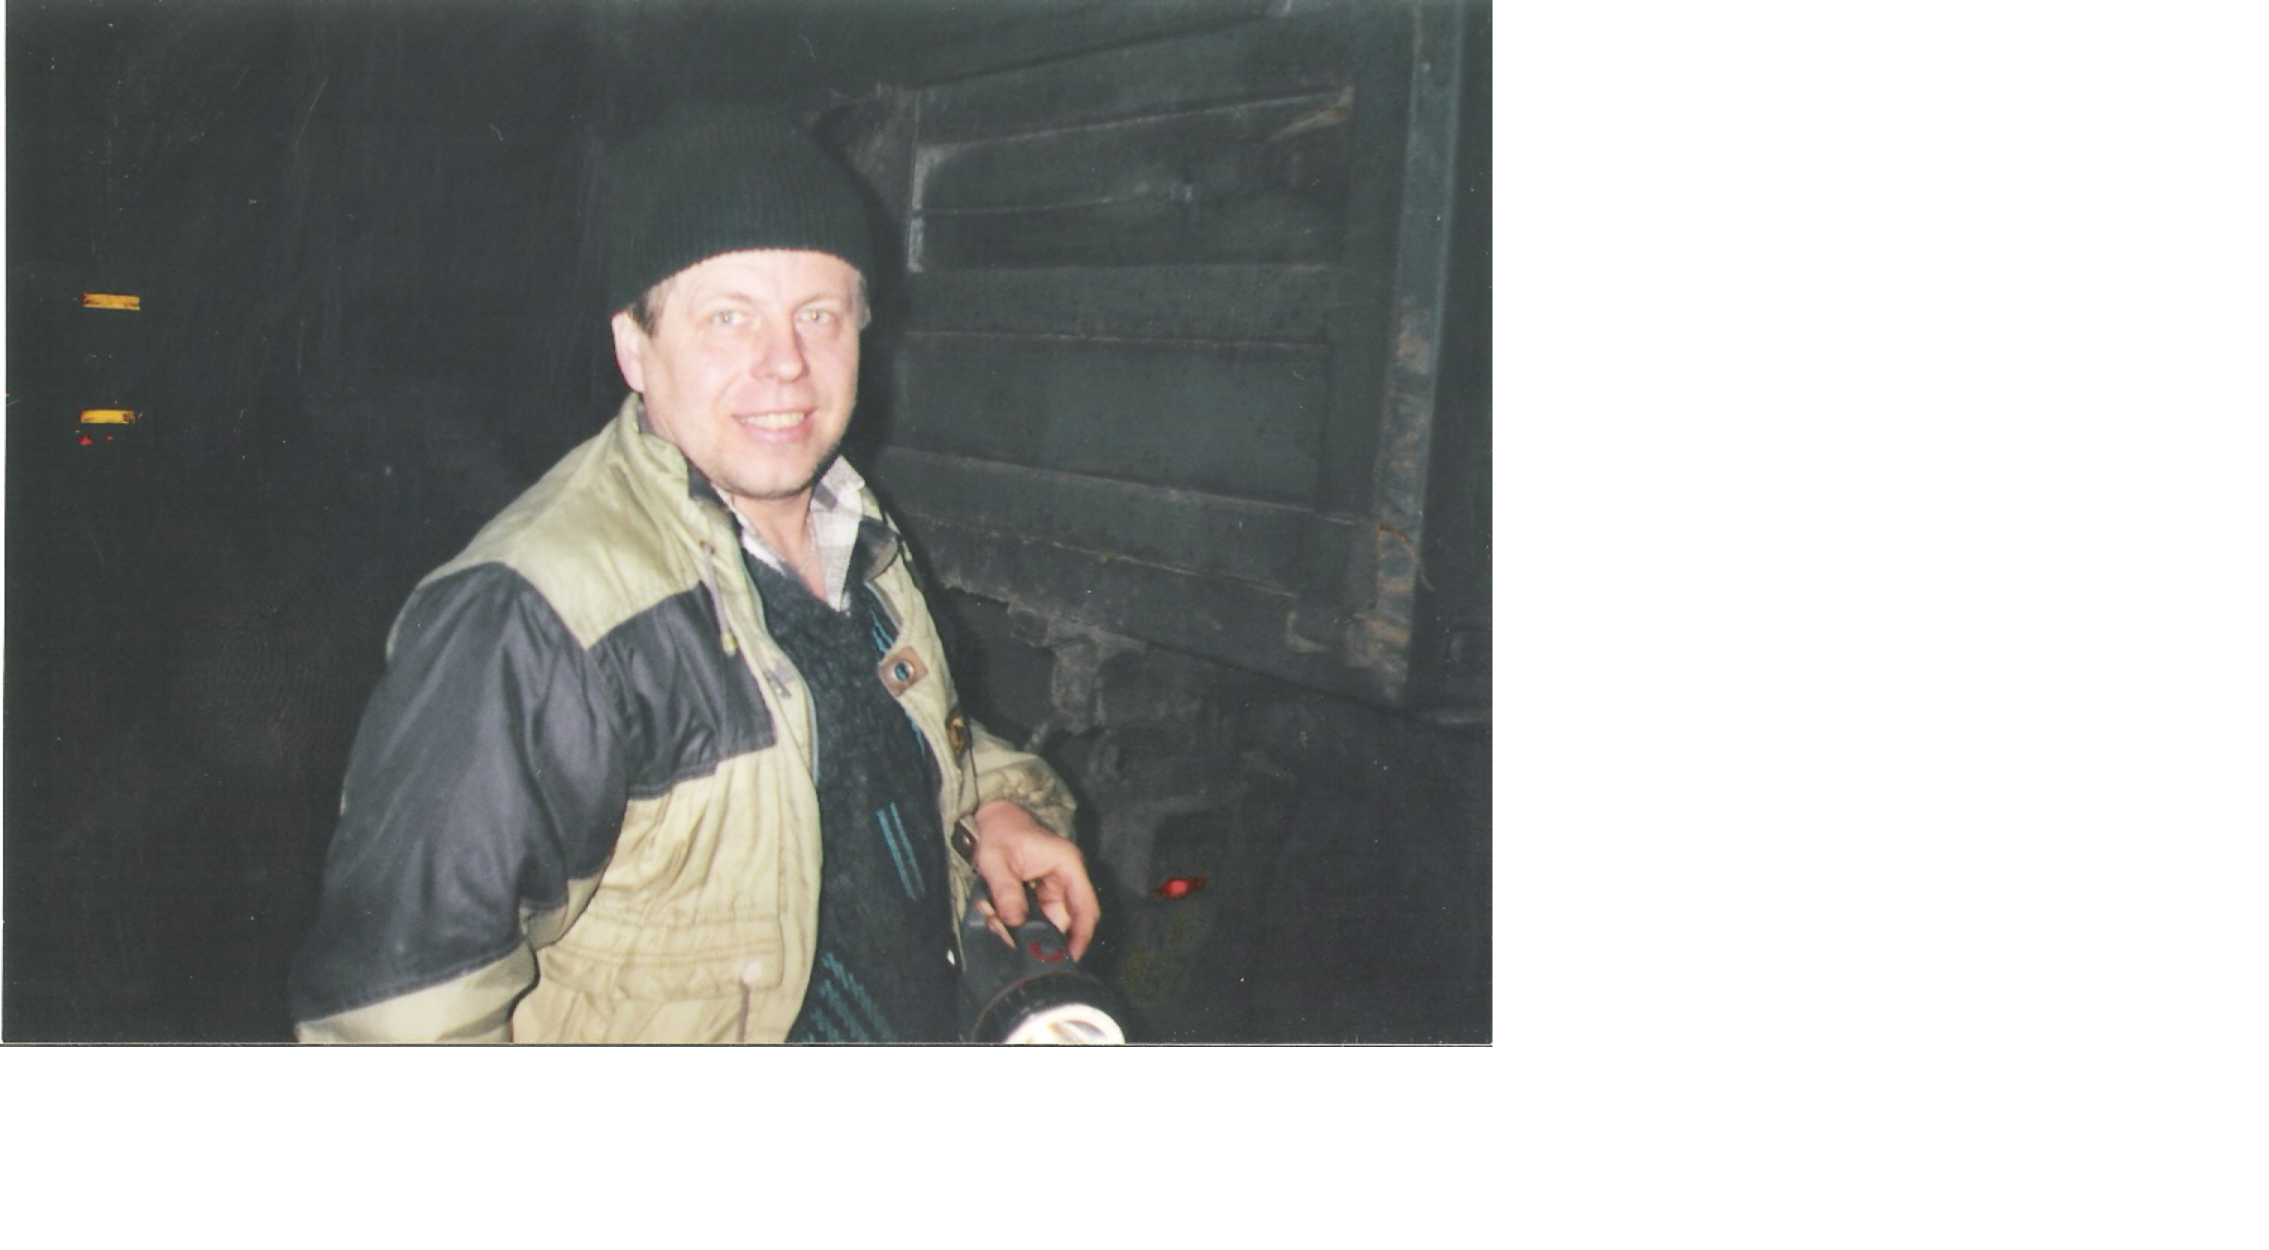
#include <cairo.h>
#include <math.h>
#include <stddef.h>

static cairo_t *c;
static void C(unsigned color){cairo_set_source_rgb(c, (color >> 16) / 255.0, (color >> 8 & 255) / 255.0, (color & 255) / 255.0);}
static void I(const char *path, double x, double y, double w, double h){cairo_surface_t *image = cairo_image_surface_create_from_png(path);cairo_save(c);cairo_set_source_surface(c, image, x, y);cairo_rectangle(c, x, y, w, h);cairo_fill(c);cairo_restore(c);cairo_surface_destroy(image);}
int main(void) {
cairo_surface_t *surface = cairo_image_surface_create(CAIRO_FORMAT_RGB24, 2269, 1250);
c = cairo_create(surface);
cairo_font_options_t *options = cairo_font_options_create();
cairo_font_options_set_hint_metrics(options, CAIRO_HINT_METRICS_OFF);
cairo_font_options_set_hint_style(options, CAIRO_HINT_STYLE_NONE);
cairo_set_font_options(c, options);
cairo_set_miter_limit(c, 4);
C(0xffffff);
cairo_paint(c);
I("1.png",0,0,1493,1047);
cairo_surface_write_to_png(surface, "o.png");
cairo_font_options_destroy(options);
cairo_destroy(c);
cairo_surface_destroy(surface);
return 0;
}
